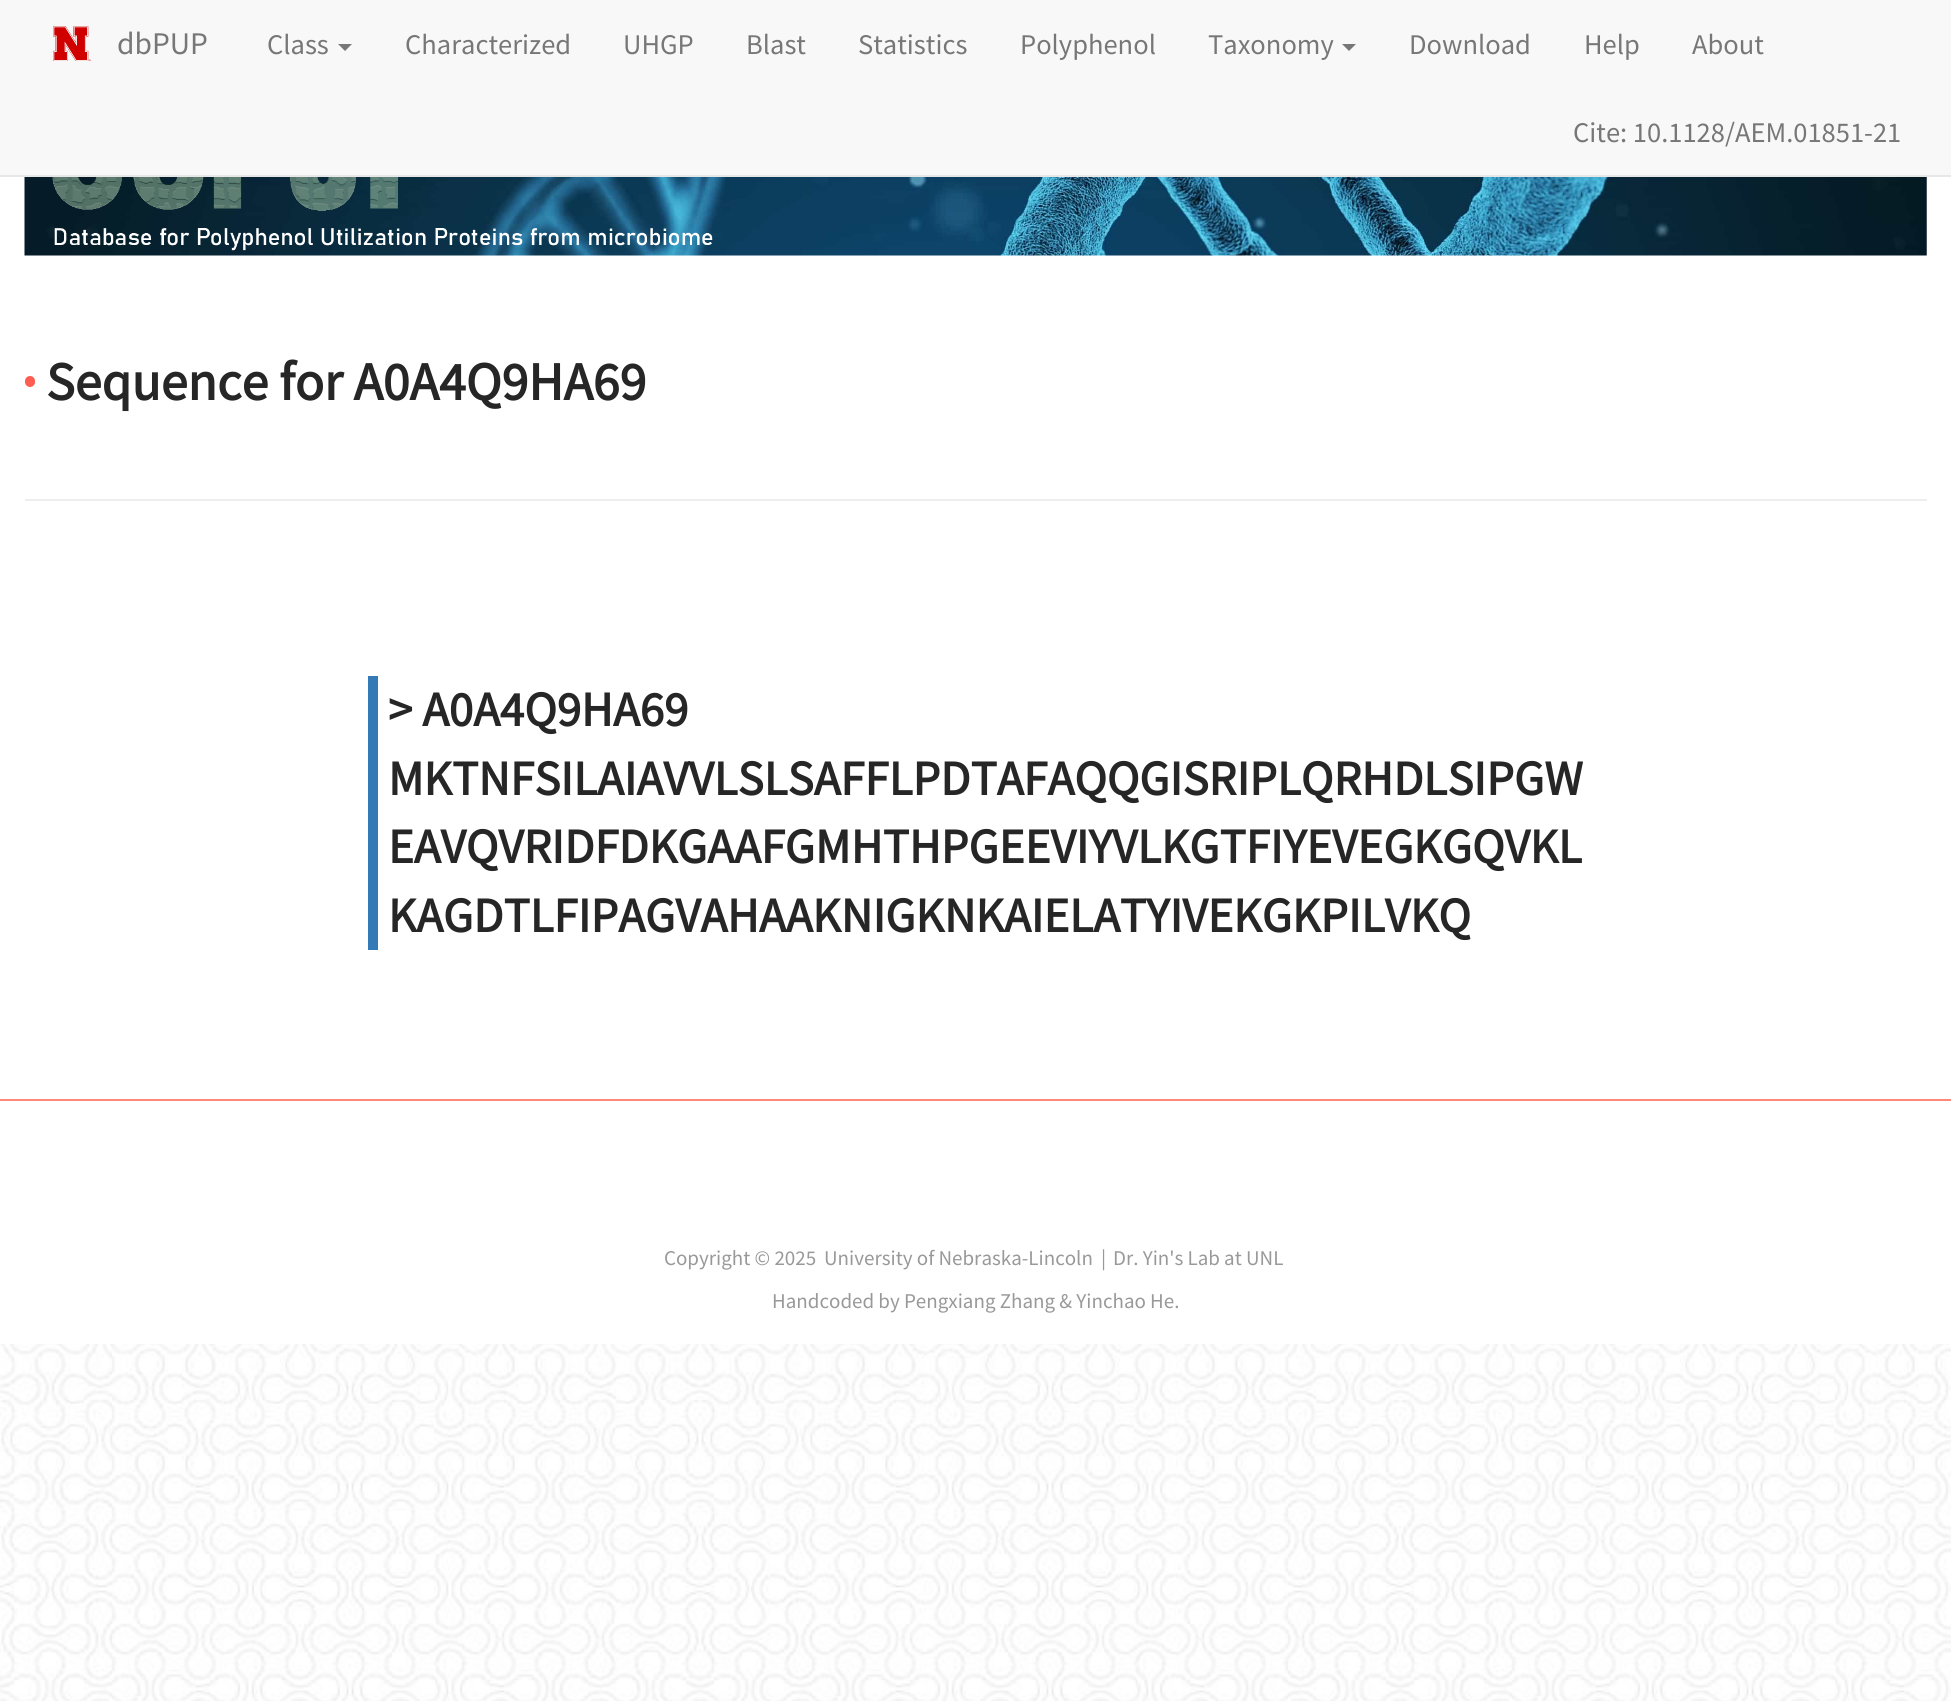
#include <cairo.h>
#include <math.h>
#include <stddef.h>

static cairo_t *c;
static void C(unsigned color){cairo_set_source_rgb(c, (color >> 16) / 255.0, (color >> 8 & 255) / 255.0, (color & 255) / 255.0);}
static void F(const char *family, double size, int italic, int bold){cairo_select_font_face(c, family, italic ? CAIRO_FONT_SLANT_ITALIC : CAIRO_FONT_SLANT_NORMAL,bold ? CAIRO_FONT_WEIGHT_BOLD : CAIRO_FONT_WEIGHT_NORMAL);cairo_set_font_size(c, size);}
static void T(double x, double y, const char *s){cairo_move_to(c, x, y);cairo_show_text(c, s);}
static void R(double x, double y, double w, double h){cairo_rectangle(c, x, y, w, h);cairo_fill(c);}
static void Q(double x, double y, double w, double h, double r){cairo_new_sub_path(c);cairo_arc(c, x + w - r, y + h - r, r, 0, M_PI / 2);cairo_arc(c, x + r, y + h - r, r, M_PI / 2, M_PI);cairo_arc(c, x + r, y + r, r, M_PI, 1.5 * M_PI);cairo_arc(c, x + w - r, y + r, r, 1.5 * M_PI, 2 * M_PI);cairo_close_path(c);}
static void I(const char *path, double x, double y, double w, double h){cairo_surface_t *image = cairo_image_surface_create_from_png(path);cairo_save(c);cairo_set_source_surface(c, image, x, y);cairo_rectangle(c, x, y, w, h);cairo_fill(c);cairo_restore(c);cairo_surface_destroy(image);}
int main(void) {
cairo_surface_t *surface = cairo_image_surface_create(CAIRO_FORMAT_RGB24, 1951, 1701);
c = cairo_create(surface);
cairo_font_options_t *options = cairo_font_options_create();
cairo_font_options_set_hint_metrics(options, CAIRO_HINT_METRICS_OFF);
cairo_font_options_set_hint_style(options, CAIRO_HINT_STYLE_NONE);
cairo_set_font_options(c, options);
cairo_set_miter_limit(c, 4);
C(0xffffff);
cairo_paint(c);
I("1.png",0,1344,1951,357);
C(0xf8f8f8);
R(0,0,1951,175);
C(0xe7e7e7);
R(0,175,1951,2);
I("2.png",53,26,38,35);
F("Source Sans Pro",31.5,0,0);
C(0x777777);
T(117,54,"dbPUP");
F("Source Sans Pro",28.5,0,0);
T(267,54,"Class");
cairo_new_path(c);
cairo_move_to(c,338,44);
cairo_line_to(c,352,44);
cairo_line_to(c,345,51);
cairo_close_path(c);
cairo_fill(c);
T(405,54,"Characterized");
T(623,54,"UHGP");
T(746,54,"Blast");
T(858,54,"Statistics");
T(1020,54,"Polyphenol");
T(1208,54,"Taxonomy");
cairo_new_path(c);
cairo_move_to(c,1342,44);
cairo_line_to(c,1356,44);
cairo_line_to(c,1349,51);
cairo_close_path(c);
cairo_fill(c);
T(1409,54,"Download");
T(1584,54,"Help");
T(1692,54,"About");
T(1573,142,"Cite: 10.1128/AEM.01851-21");
I("3.png",24,177,1903,79);
I("4.png",52,177,661,74);
C(0xeeeeee);
R(25,499,1902,2);
C(0xff5d52);
Q(25,376,10,11,5);
cairo_fill(c);
F("Source Sans Pro",53.9,0,1);
C(0x262626);
T(46,400,"Sequence for A0A4Q9HA69");
C(0x337ab7);
R(368,676,10,274);
F("Source Sans Pro",49,0,1);
C(0x262626);
T(388,726,"> A0A4Q9HA69");
T(388,795,"MKTNFSILAIAVVLSLSAFFLPDTAFAQQGISRIPLQRHDLSIPGW");
T(388,863,"EAVQVRIDFDKGAAFGMHTHPGEEVIYVLKGTFIYEVEGKGQVKL");
T(388,932,"KAGDTLFIPAGVAHAAKNIGKNKAIELATYIVEKGKPILVKQ");
C(0xff887a);
R(0,1099,1951,2);
F("Source Sans Pro",21,0,0);
C(0x999999);
T(664,1265,"Copyright © 2025");
T(824,1265,"University of Nebraska-Lincoln");
T(1101,1265,"|");
T(1113,1265,"Dr. Yin's Lab at UNL");
T(772,1308,"Handcoded by Pengxiang Zhang & Yinchao He.");
cairo_surface_write_to_png(surface, "o.png");
cairo_font_options_destroy(options);
cairo_destroy(c);
cairo_surface_destroy(surface);
return 0;
}
